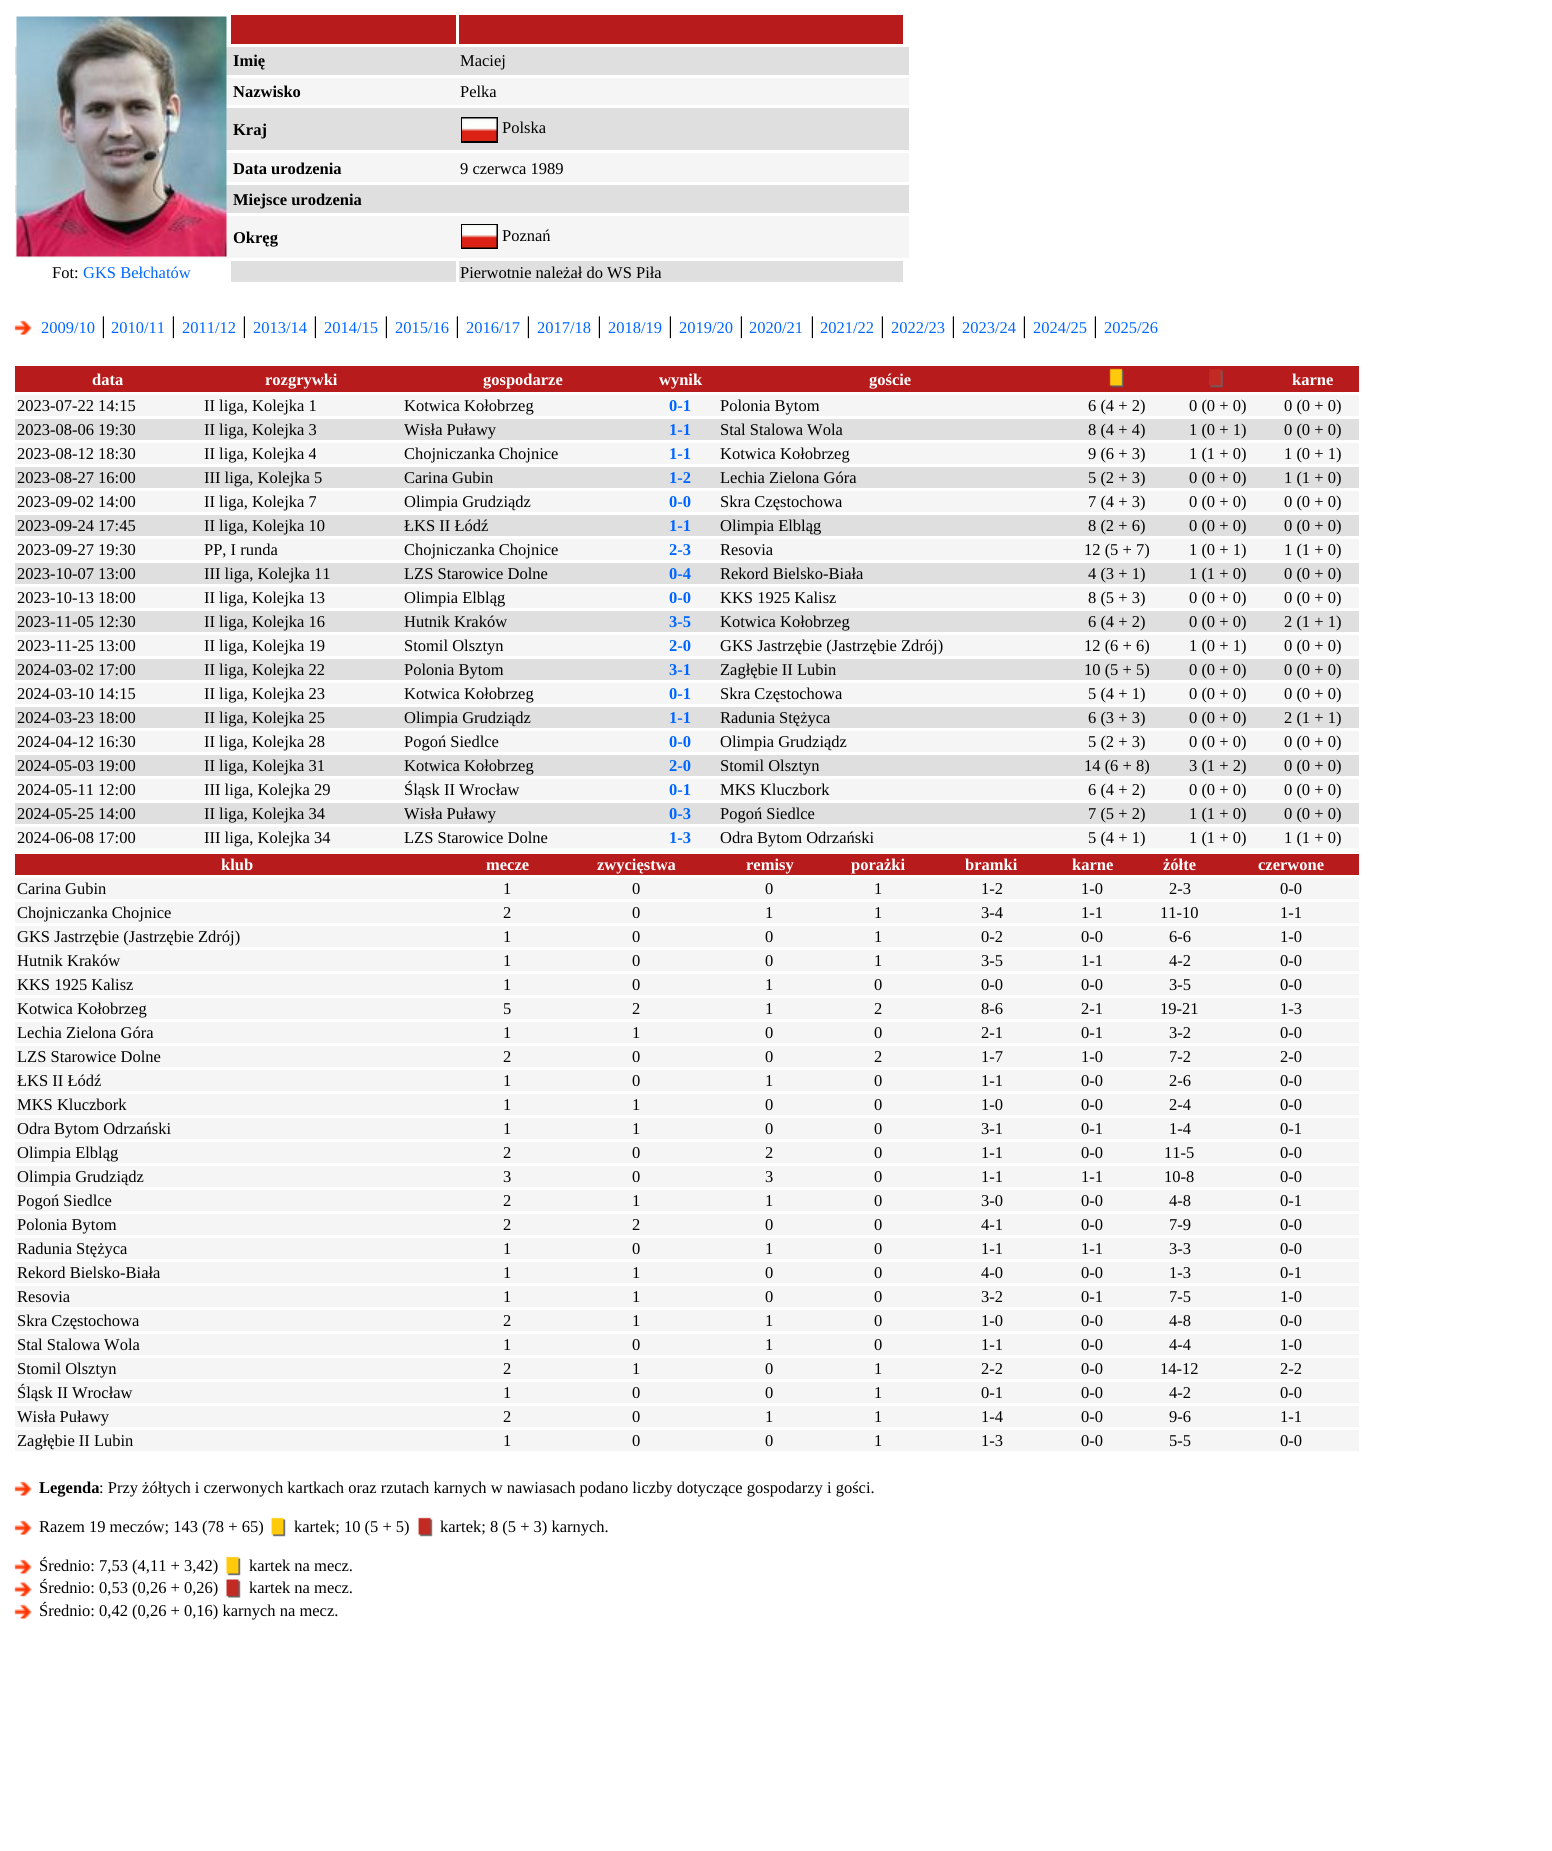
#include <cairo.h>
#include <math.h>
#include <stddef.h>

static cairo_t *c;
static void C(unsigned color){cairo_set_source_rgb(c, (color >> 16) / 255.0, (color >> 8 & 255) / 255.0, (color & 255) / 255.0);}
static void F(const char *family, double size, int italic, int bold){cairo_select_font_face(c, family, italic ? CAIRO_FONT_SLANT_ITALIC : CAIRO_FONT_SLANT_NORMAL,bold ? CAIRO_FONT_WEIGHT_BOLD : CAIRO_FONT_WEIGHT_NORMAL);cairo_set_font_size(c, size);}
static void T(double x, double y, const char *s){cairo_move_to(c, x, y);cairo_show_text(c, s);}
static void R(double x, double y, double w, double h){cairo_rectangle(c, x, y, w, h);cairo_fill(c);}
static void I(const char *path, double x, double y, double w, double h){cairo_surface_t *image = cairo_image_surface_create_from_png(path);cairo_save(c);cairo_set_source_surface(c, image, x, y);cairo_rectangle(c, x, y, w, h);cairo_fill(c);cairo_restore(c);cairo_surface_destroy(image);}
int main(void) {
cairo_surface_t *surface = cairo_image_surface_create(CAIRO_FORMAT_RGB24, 1552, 1851);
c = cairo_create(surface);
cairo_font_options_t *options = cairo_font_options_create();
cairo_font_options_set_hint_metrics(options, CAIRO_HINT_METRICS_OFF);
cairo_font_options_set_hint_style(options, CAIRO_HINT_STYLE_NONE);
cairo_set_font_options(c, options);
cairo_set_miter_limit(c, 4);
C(0xffffff);
cairo_paint(c);
C(0xdfdfdf);
R(15,47,894,28);
C(0xf5f5f5);
R(15,78,894,27);
C(0xdfdfdf);
R(15,108,894,42);
C(0xf5f5f5);
R(15,153,894,29);
C(0xdfdfdf);
R(15,185,894,28);
C(0xf5f5f5);
R(15,216,894,42);
I("1.png",16,16,211,241);
C(0xb81b1b);
R(231,15,225,29);
R(459,15,444,29);
F("Liberation Serif",16.5,0,1);
C(0x000000);
T(233,66,"Imię");
F("Liberation Serif",16.5,0,0);
T(460,66,"Maciej");
F("Liberation Serif",16.5,0,1);
T(233,97,"Nazwisko");
F("Liberation Serif",16.5,0,0);
T(460,97,"Pelka");
F("Liberation Serif",16.5,0,1);
T(233,135,"Kraj");
cairo_rectangle(c,462,118,35,24);
cairo_stroke(c);
I("2.png",462,118,35,23);
F("Liberation Serif",16.5,0,0);
T(502,133,"Polska");
F("Liberation Serif",16.5,0,1);
T(233,174,"Data urodzenia");
F("Liberation Serif",16.5,0,0);
T(460,174,"9 czerwca 1989");
F("Liberation Serif",16.5,0,1);
T(233,205,"Miejsce urodzenia");
T(233,243,"Okręg");
cairo_rectangle(c,462,225,35,23);
cairo_stroke(c);
I("3.png",462,225,35,23);
F("Liberation Serif",16.5,0,0);
T(502,241,"Poznań");
T(52,278,"Fot:");
C(0x0066ff);
T(83,278,"GKS Bełchatów");
C(0xdfdfdf);
R(231,261,225,21);
R(459,261,444,21);
C(0x000000);
T(460,278,"Pierwotnie należał do WS Piła");
I("4.png",14,320,18,15);
C(0x0066ff);
T(41,333,"2009/10");
F("Liberation Serif",24,0,0);
C(0x000000);
T(101,333,"|");
F("Liberation Serif",16.5,0,0);
C(0x0066ff);
T(111,333,"2010/11");
F("Liberation Serif",24,0,0);
C(0x000000);
T(171,333,"|");
F("Liberation Serif",16.5,0,0);
C(0x0066ff);
T(182,333,"2011/12");
F("Liberation Serif",24,0,0);
C(0x000000);
T(242,333,"|");
F("Liberation Serif",16.5,0,0);
C(0x0066ff);
T(253,333,"2013/14");
F("Liberation Serif",24,0,0);
C(0x000000);
T(313,333,"|");
F("Liberation Serif",16.5,0,0);
C(0x0066ff);
T(324,333,"2014/15");
F("Liberation Serif",24,0,0);
C(0x000000);
T(384,333,"|");
F("Liberation Serif",16.5,0,0);
C(0x0066ff);
T(395,333,"2015/16");
F("Liberation Serif",24,0,0);
C(0x000000);
T(455,333,"|");
F("Liberation Serif",16.5,0,0);
C(0x0066ff);
T(466,333,"2016/17");
F("Liberation Serif",24,0,0);
C(0x000000);
T(526,333,"|");
F("Liberation Serif",16.5,0,0);
C(0x0066ff);
T(537,333,"2017/18");
F("Liberation Serif",24,0,0);
C(0x000000);
T(597,333,"|");
F("Liberation Serif",16.5,0,0);
C(0x0066ff);
T(608,333,"2018/19");
F("Liberation Serif",24,0,0);
C(0x000000);
T(668,333,"|");
F("Liberation Serif",16.5,0,0);
C(0x0066ff);
T(679,333,"2019/20");
F("Liberation Serif",24,0,0);
C(0x000000);
T(739,333,"|");
F("Liberation Serif",16.5,0,0);
C(0x0066ff);
T(749,333,"2020/21");
F("Liberation Serif",24,0,0);
C(0x000000);
T(810,333,"|");
F("Liberation Serif",16.5,0,0);
C(0x0066ff);
T(820,333,"2021/22");
F("Liberation Serif",24,0,0);
C(0x000000);
T(880,333,"|");
F("Liberation Serif",16.5,0,0);
C(0x0066ff);
T(891,333,"2022/23");
F("Liberation Serif",24,0,0);
C(0x000000);
T(951,333,"|");
F("Liberation Serif",16.5,0,0);
C(0x0066ff);
T(962,333,"2023/24");
F("Liberation Serif",24,0,0);
C(0x000000);
T(1022,333,"|");
F("Liberation Serif",16.5,0,0);
C(0x0066ff);
T(1033,333,"2024/25");
F("Liberation Serif",24,0,0);
C(0x000000);
T(1093,333,"|");
F("Liberation Serif",16.5,0,0);
C(0x0066ff);
T(1104,333,"2025/26");
C(0xb81b1b);
R(15,366,1344,26);
F("Liberation Serif",16.5,0,1);
C(0xffffff);
T(92,385,"data");
T(265,385,"rozgrywki");
T(483,385,"gospodarze");
T(659,385,"wynik");
T(869,385,"goście");
I("5.png",1109,368,15,20);
I("6.png",1209,369,14,19);
T(1292,385,"karne");
C(0xf5f5f5);
R(15,395,1344,21);
F("Liberation Serif",16.5,0,0);
C(0x000000);
T(17,411,"2023-07-22 14:15");
T(204,411,"II liga, Kolejka 1");
T(404,411,"Kotwica Kołobrzeg");
F("Liberation Serif",16.5,0,1);
C(0x0066ff);
T(669,411,"0-1");
F("Liberation Serif",16.5,0,0);
C(0x000000);
T(720,411,"Polonia Bytom");
T(1088,411,"6 (4 + 2)");
T(1189,411,"0 (0 + 0)");
T(1284,411,"0 (0 + 0)");
C(0xdfdfdf);
R(15,419,1344,21);
C(0x000000);
T(17,435,"2023-08-06 19:30");
T(204,435,"II liga, Kolejka 3");
T(404,435,"Wisła Puławy");
F("Liberation Serif",16.5,0,1);
C(0x0066ff);
T(669,435,"1-1");
F("Liberation Serif",16.5,0,0);
C(0x000000);
T(720,435,"Stal Stalowa Wola");
T(1088,435,"8 (4 + 4)");
T(1189,435,"1 (0 + 1)");
T(1284,435,"0 (0 + 0)");
C(0xf5f5f5);
R(15,443,1344,21);
C(0x000000);
T(17,459,"2023-08-12 18:30");
T(204,459,"II liga, Kolejka 4");
T(404,459,"Chojniczanka Chojnice");
F("Liberation Serif",16.5,0,1);
C(0x0066ff);
T(669,459,"1-1");
F("Liberation Serif",16.5,0,0);
C(0x000000);
T(720,459,"Kotwica Kołobrzeg");
T(1088,459,"9 (6 + 3)");
T(1189,459,"1 (1 + 0)");
T(1284,459,"1 (0 + 1)");
C(0xdfdfdf);
R(15,467,1344,21);
C(0x000000);
T(17,483,"2023-08-27 16:00");
T(204,483,"III liga, Kolejka 5");
T(404,483,"Carina Gubin");
F("Liberation Serif",16.5,0,1);
C(0x0066ff);
T(669,483,"1-2");
F("Liberation Serif",16.5,0,0);
C(0x000000);
T(720,483,"Lechia Zielona Góra");
T(1088,483,"5 (2 + 3)");
T(1189,483,"0 (0 + 0)");
T(1284,483,"1 (1 + 0)");
C(0xf5f5f5);
R(15,491,1344,21);
C(0x000000);
T(17,507,"2023-09-02 14:00");
T(204,507,"II liga, Kolejka 7");
T(404,507,"Olimpia Grudziądz");
F("Liberation Serif",16.5,0,1);
C(0x0066ff);
T(669,507,"0-0");
F("Liberation Serif",16.5,0,0);
C(0x000000);
T(720,507,"Skra Częstochowa");
T(1088,507,"7 (4 + 3)");
T(1189,507,"0 (0 + 0)");
T(1284,507,"0 (0 + 0)");
C(0xdfdfdf);
R(15,515,1344,21);
C(0x000000);
T(17,531,"2023-09-24 17:45");
T(204,531,"II liga, Kolejka 10");
T(404,531,"ŁKS II Łódź");
F("Liberation Serif",16.5,0,1);
C(0x0066ff);
T(669,531,"1-1");
F("Liberation Serif",16.5,0,0);
C(0x000000);
T(720,531,"Olimpia Elbląg");
T(1088,531,"8 (2 + 6)");
T(1189,531,"0 (0 + 0)");
T(1284,531,"0 (0 + 0)");
C(0xf5f5f5);
R(15,539,1344,21);
C(0x000000);
T(17,555,"2023-09-27 19:30");
T(204,555,"PP, I runda");
T(404,555,"Chojniczanka Chojnice");
F("Liberation Serif",16.5,0,1);
C(0x0066ff);
T(669,555,"2-3");
F("Liberation Serif",16.5,0,0);
C(0x000000);
T(720,555,"Resovia");
T(1084,555,"12 (5 + 7)");
T(1189,555,"1 (0 + 1)");
T(1284,555,"1 (1 + 0)");
C(0xdfdfdf);
R(15,563,1344,21);
C(0x000000);
T(17,579,"2023-10-07 13:00");
T(204,579,"III liga, Kolejka 11");
T(404,579,"LZS Starowice Dolne");
F("Liberation Serif",16.5,0,1);
C(0x0066ff);
T(669,579,"0-4");
F("Liberation Serif",16.5,0,0);
C(0x000000);
T(720,579,"Rekord Bielsko-Biała");
T(1088,579,"4 (3 + 1)");
T(1189,579,"1 (1 + 0)");
T(1284,579,"0 (0 + 0)");
C(0xf5f5f5);
R(15,587,1344,21);
C(0x000000);
T(17,603,"2023-10-13 18:00");
T(204,603,"II liga, Kolejka 13");
T(404,603,"Olimpia Elbląg");
F("Liberation Serif",16.5,0,1);
C(0x0066ff);
T(669,603,"0-0");
F("Liberation Serif",16.5,0,0);
C(0x000000);
T(720,603,"KKS 1925 Kalisz");
T(1088,603,"8 (5 + 3)");
T(1189,603,"0 (0 + 0)");
T(1284,603,"0 (0 + 0)");
C(0xdfdfdf);
R(15,611,1344,21);
C(0x000000);
T(17,627,"2023-11-05 12:30");
T(204,627,"II liga, Kolejka 16");
T(404,627,"Hutnik Kraków");
F("Liberation Serif",16.5,0,1);
C(0x0066ff);
T(669,627,"3-5");
F("Liberation Serif",16.5,0,0);
C(0x000000);
T(720,627,"Kotwica Kołobrzeg");
T(1088,627,"6 (4 + 2)");
T(1189,627,"0 (0 + 0)");
T(1284,627,"2 (1 + 1)");
C(0xf5f5f5);
R(15,635,1344,21);
C(0x000000);
T(17,651,"2023-11-25 13:00");
T(204,651,"II liga, Kolejka 19");
T(404,651,"Stomil Olsztyn");
F("Liberation Serif",16.5,0,1);
C(0x0066ff);
T(669,651,"2-0");
F("Liberation Serif",16.5,0,0);
C(0x000000);
T(720,651,"GKS Jastrzębie (Jastrzębie Zdrój)");
T(1084,651,"12 (6 + 6)");
T(1189,651,"1 (0 + 1)");
T(1284,651,"0 (0 + 0)");
C(0xdfdfdf);
R(15,659,1344,21);
C(0x000000);
T(17,675,"2024-03-02 17:00");
T(204,675,"II liga, Kolejka 22");
T(404,675,"Polonia Bytom");
F("Liberation Serif",16.5,0,1);
C(0x0066ff);
T(669,675,"3-1");
F("Liberation Serif",16.5,0,0);
C(0x000000);
T(720,675,"Zagłębie II Lubin");
T(1084,675,"10 (5 + 5)");
T(1189,675,"0 (0 + 0)");
T(1284,675,"0 (0 + 0)");
C(0xf5f5f5);
R(15,683,1344,21);
C(0x000000);
T(17,699,"2024-03-10 14:15");
T(204,699,"II liga, Kolejka 23");
T(404,699,"Kotwica Kołobrzeg");
F("Liberation Serif",16.5,0,1);
C(0x0066ff);
T(669,699,"0-1");
F("Liberation Serif",16.5,0,0);
C(0x000000);
T(720,699,"Skra Częstochowa");
T(1088,699,"5 (4 + 1)");
T(1189,699,"0 (0 + 0)");
T(1284,699,"0 (0 + 0)");
C(0xdfdfdf);
R(15,707,1344,21);
C(0x000000);
T(17,723,"2024-03-23 18:00");
T(204,723,"II liga, Kolejka 25");
T(404,723,"Olimpia Grudziądz");
F("Liberation Serif",16.5,0,1);
C(0x0066ff);
T(669,723,"1-1");
F("Liberation Serif",16.5,0,0);
C(0x000000);
T(720,723,"Radunia Stężyca");
T(1088,723,"6 (3 + 3)");
T(1189,723,"0 (0 + 0)");
T(1284,723,"2 (1 + 1)");
C(0xf5f5f5);
R(15,731,1344,21);
C(0x000000);
T(17,747,"2024-04-12 16:30");
T(204,747,"II liga, Kolejka 28");
T(404,747,"Pogoń Siedlce");
F("Liberation Serif",16.5,0,1);
C(0x0066ff);
T(669,747,"0-0");
F("Liberation Serif",16.5,0,0);
C(0x000000);
T(720,747,"Olimpia Grudziądz");
T(1088,747,"5 (2 + 3)");
T(1189,747,"0 (0 + 0)");
T(1284,747,"0 (0 + 0)");
C(0xdfdfdf);
R(15,755,1344,21);
C(0x000000);
T(17,771,"2024-05-03 19:00");
T(204,771,"II liga, Kolejka 31");
T(404,771,"Kotwica Kołobrzeg");
F("Liberation Serif",16.5,0,1);
C(0x0066ff);
T(669,771,"2-0");
F("Liberation Serif",16.5,0,0);
C(0x000000);
T(720,771,"Stomil Olsztyn");
T(1084,771,"14 (6 + 8)");
T(1189,771,"3 (1 + 2)");
T(1284,771,"0 (0 + 0)");
C(0xf5f5f5);
R(15,779,1344,21);
C(0x000000);
T(17,795,"2024-05-11 12:00");
T(204,795,"III liga, Kolejka 29");
T(404,795,"Śląsk II Wrocław");
F("Liberation Serif",16.5,0,1);
C(0x0066ff);
T(669,795,"0-1");
F("Liberation Serif",16.5,0,0);
C(0x000000);
T(720,795,"MKS Kluczbork");
T(1088,795,"6 (4 + 2)");
T(1189,795,"0 (0 + 0)");
T(1284,795,"0 (0 + 0)");
C(0xdfdfdf);
R(15,803,1344,21);
C(0x000000);
T(17,819,"2024-05-25 14:00");
T(204,819,"II liga, Kolejka 34");
T(404,819,"Wisła Puławy");
F("Liberation Serif",16.5,0,1);
C(0x0066ff);
T(669,819,"0-3");
F("Liberation Serif",16.5,0,0);
C(0x000000);
T(720,819,"Pogoń Siedlce");
T(1088,819,"7 (5 + 2)");
T(1189,819,"1 (1 + 0)");
T(1284,819,"0 (0 + 0)");
C(0xf5f5f5);
R(15,827,1344,21);
C(0x000000);
T(17,843,"2024-06-08 17:00");
T(204,843,"III liga, Kolejka 34");
T(404,843,"LZS Starowice Dolne");
F("Liberation Serif",16.5,0,1);
C(0x0066ff);
T(669,843,"1-3");
F("Liberation Serif",16.5,0,0);
C(0x000000);
T(720,843,"Odra Bytom Odrzański");
T(1088,843,"5 (4 + 1)");
T(1189,843,"1 (1 + 0)");
T(1284,843,"1 (1 + 0)");
C(0xb81b1b);
R(15,854,1344,21);
F("Liberation Serif",16.5,0,1);
C(0xffffff);
T(221,870,"klub");
T(486,870,"mecze");
T(597,870,"zwycięstwa");
T(746,870,"remisy");
T(851,870,"porażki");
T(965,870,"bramki");
T(1072,870,"karne");
T(1163,870,"żółte");
T(1258,870,"czerwone");
C(0xf5f5f5);
R(15,878,1344,21);
F("Liberation Serif",16.5,0,0);
C(0x000000);
T(17,894,"Carina Gubin");
T(503,894,"1");
T(632,894,"0");
T(765,894,"0");
T(874,894,"1");
T(981,894,"1-2");
T(1081,894,"1-0");
T(1169,894,"2-3");
T(1280,894,"0-0");
C(0xf5f5f5);
R(15,902,1344,21);
C(0x000000);
T(17,918,"Chojniczanka Chojnice");
T(503,918,"2");
T(632,918,"0");
T(765,918,"1");
T(874,918,"1");
T(981,918,"3-4");
T(1081,918,"1-1");
T(1160,918,"11-10");
T(1280,918,"1-1");
C(0xf5f5f5);
R(15,926,1344,21);
C(0x000000);
T(17,942,"GKS Jastrzębie (Jastrzębie Zdrój)");
T(503,942,"1");
T(632,942,"0");
T(765,942,"0");
T(874,942,"1");
T(981,942,"0-2");
T(1081,942,"0-0");
T(1169,942,"6-6");
T(1280,942,"1-0");
C(0xf5f5f5);
R(15,950,1344,21);
C(0x000000);
T(17,966,"Hutnik Kraków");
T(503,966,"1");
T(632,966,"0");
T(765,966,"0");
T(874,966,"1");
T(981,966,"3-5");
T(1081,966,"1-1");
T(1169,966,"4-2");
T(1280,966,"0-0");
C(0xf5f5f5);
R(15,974,1344,21);
C(0x000000);
T(17,990,"KKS 1925 Kalisz");
T(503,990,"1");
T(632,990,"0");
T(765,990,"1");
T(874,990,"0");
T(981,990,"0-0");
T(1081,990,"0-0");
T(1169,990,"3-5");
T(1280,990,"0-0");
C(0xf5f5f5);
R(15,998,1344,21);
C(0x000000);
T(17,1014,"Kotwica Kołobrzeg");
T(503,1014,"5");
T(632,1014,"2");
T(765,1014,"1");
T(874,1014,"2");
T(981,1014,"8-6");
T(1081,1014,"2-1");
T(1160,1014,"19-21");
T(1280,1014,"1-3");
C(0xf5f5f5);
R(15,1022,1344,21);
C(0x000000);
T(17,1038,"Lechia Zielona Góra");
T(503,1038,"1");
T(632,1038,"1");
T(765,1038,"0");
T(874,1038,"0");
T(981,1038,"2-1");
T(1081,1038,"0-1");
T(1169,1038,"3-2");
T(1280,1038,"0-0");
C(0xf5f5f5);
R(15,1046,1344,21);
C(0x000000);
T(17,1062,"LZS Starowice Dolne");
T(503,1062,"2");
T(632,1062,"0");
T(765,1062,"0");
T(874,1062,"2");
T(981,1062,"1-7");
T(1081,1062,"1-0");
T(1169,1062,"7-2");
T(1280,1062,"2-0");
C(0xf5f5f5);
R(15,1070,1344,21);
C(0x000000);
T(17,1086,"ŁKS II Łódź");
T(503,1086,"1");
T(632,1086,"0");
T(765,1086,"1");
T(874,1086,"0");
T(981,1086,"1-1");
T(1081,1086,"0-0");
T(1169,1086,"2-6");
T(1280,1086,"0-0");
C(0xf5f5f5);
R(15,1094,1344,21);
C(0x000000);
T(17,1110,"MKS Kluczbork");
T(503,1110,"1");
T(632,1110,"1");
T(765,1110,"0");
T(874,1110,"0");
T(981,1110,"1-0");
T(1081,1110,"0-0");
T(1169,1110,"2-4");
T(1280,1110,"0-0");
C(0xf5f5f5);
R(15,1118,1344,21);
C(0x000000);
T(17,1134,"Odra Bytom Odrzański");
T(503,1134,"1");
T(632,1134,"1");
T(765,1134,"0");
T(874,1134,"0");
T(981,1134,"3-1");
T(1081,1134,"0-1");
T(1169,1134,"1-4");
T(1280,1134,"0-1");
C(0xf5f5f5);
R(15,1142,1344,21);
C(0x000000);
T(17,1158,"Olimpia Elbląg");
T(503,1158,"2");
T(632,1158,"0");
T(765,1158,"2");
T(874,1158,"0");
T(981,1158,"1-1");
T(1081,1158,"0-0");
T(1164,1158,"11-5");
T(1280,1158,"0-0");
C(0xf5f5f5);
R(15,1166,1344,21);
C(0x000000);
T(17,1182,"Olimpia Grudziądz");
T(503,1182,"3");
T(632,1182,"0");
T(765,1182,"3");
T(874,1182,"0");
T(981,1182,"1-1");
T(1081,1182,"1-1");
T(1164,1182,"10-8");
T(1280,1182,"0-0");
C(0xf5f5f5);
R(15,1190,1344,21);
C(0x000000);
T(17,1206,"Pogoń Siedlce");
T(503,1206,"2");
T(632,1206,"1");
T(765,1206,"1");
T(874,1206,"0");
T(981,1206,"3-0");
T(1081,1206,"0-0");
T(1169,1206,"4-8");
T(1280,1206,"0-1");
C(0xf5f5f5);
R(15,1214,1344,21);
C(0x000000);
T(17,1230,"Polonia Bytom");
T(503,1230,"2");
T(632,1230,"2");
T(765,1230,"0");
T(874,1230,"0");
T(981,1230,"4-1");
T(1081,1230,"0-0");
T(1169,1230,"7-9");
T(1280,1230,"0-0");
C(0xf5f5f5);
R(15,1238,1344,21);
C(0x000000);
T(17,1254,"Radunia Stężyca");
T(503,1254,"1");
T(632,1254,"0");
T(765,1254,"1");
T(874,1254,"0");
T(981,1254,"1-1");
T(1081,1254,"1-1");
T(1169,1254,"3-3");
T(1280,1254,"0-0");
C(0xf5f5f5);
R(15,1262,1344,21);
C(0x000000);
T(17,1278,"Rekord Bielsko-Biała");
T(503,1278,"1");
T(632,1278,"1");
T(765,1278,"0");
T(874,1278,"0");
T(981,1278,"4-0");
T(1081,1278,"0-0");
T(1169,1278,"1-3");
T(1280,1278,"0-1");
C(0xf5f5f5);
R(15,1286,1344,21);
C(0x000000);
T(17,1302,"Resovia");
T(503,1302,"1");
T(632,1302,"1");
T(765,1302,"0");
T(874,1302,"0");
T(981,1302,"3-2");
T(1081,1302,"0-1");
T(1169,1302,"7-5");
T(1280,1302,"1-0");
C(0xf5f5f5);
R(15,1310,1344,21);
C(0x000000);
T(17,1326,"Skra Częstochowa");
T(503,1326,"2");
T(632,1326,"1");
T(765,1326,"1");
T(874,1326,"0");
T(981,1326,"1-0");
T(1081,1326,"0-0");
T(1169,1326,"4-8");
T(1280,1326,"0-0");
C(0xf5f5f5);
R(15,1334,1344,21);
C(0x000000);
T(17,1350,"Stal Stalowa Wola");
T(503,1350,"1");
T(632,1350,"0");
T(765,1350,"1");
T(874,1350,"0");
T(981,1350,"1-1");
T(1081,1350,"0-0");
T(1169,1350,"4-4");
T(1280,1350,"1-0");
C(0xf5f5f5);
R(15,1358,1344,21);
C(0x000000);
T(17,1374,"Stomil Olsztyn");
T(503,1374,"2");
T(632,1374,"1");
T(765,1374,"0");
T(874,1374,"1");
T(981,1374,"2-2");
T(1081,1374,"0-0");
T(1160,1374,"14-12");
T(1280,1374,"2-2");
C(0xf5f5f5);
R(15,1382,1344,21);
C(0x000000);
T(17,1398,"Śląsk II Wrocław");
T(503,1398,"1");
T(632,1398,"0");
T(765,1398,"0");
T(874,1398,"1");
T(981,1398,"0-1");
T(1081,1398,"0-0");
T(1169,1398,"4-2");
T(1280,1398,"0-0");
C(0xf5f5f5);
R(15,1406,1344,21);
C(0x000000);
T(17,1422,"Wisła Puławy");
T(503,1422,"2");
T(632,1422,"0");
T(765,1422,"1");
T(874,1422,"1");
T(981,1422,"1-4");
T(1081,1422,"0-0");
T(1169,1422,"9-6");
T(1280,1422,"1-1");
C(0xf5f5f5);
R(15,1430,1344,21);
C(0x000000);
T(17,1446,"Zagłębie II Lubin");
T(503,1446,"1");
T(632,1446,"0");
T(765,1446,"0");
T(874,1446,"1");
T(981,1446,"1-3");
T(1081,1446,"0-0");
T(1169,1446,"5-5");
T(1280,1446,"0-0");
I("4.png",14,1481,18,15);
F("Liberation Serif",16.5,0,1);
T(39,1493,"Legenda");
F("Liberation Serif",16.5,0,0);
T(99,1493,": Przy żółtych i czerwonych kartkach oraz rzutach karnych w nawiasach podano liczby dotyczące gospodarzy i gości.");
I("4.png",14,1520,18,15);
T(39,1532,"Razem 19 meczów; 143 (78 + 65)");
I("7.png",271,1517,15,20);
T(294,1532,"kartek; 10 (5 + 5)");
I("8.png",418,1517,15,20);
T(440,1532,"kartek; 8 (5 + 3) karnych.");
I("4.png",14,1559,18,15);
T(39,1571,"Średnio: 7,53 (4,11 + 3,42)");
I("9.png",226,1556,15,20);
T(249,1571,"kartek na mecz.");
I("10.png",14,1582,18,15);
T(39,1593,"Średnio: 0,53 (0,26 + 0,26)");
I("11.png",226,1579,15,19);
T(249,1593,"kartek na mecz.");
I("4.png",14,1604,18,15);
T(39,1616,"Średnio: 0,42 (0,26 + 0,16) karnych na mecz.");
cairo_surface_write_to_png(surface, "o.png");
cairo_font_options_destroy(options);
cairo_destroy(c);
cairo_surface_destroy(surface);
return 0;
}
